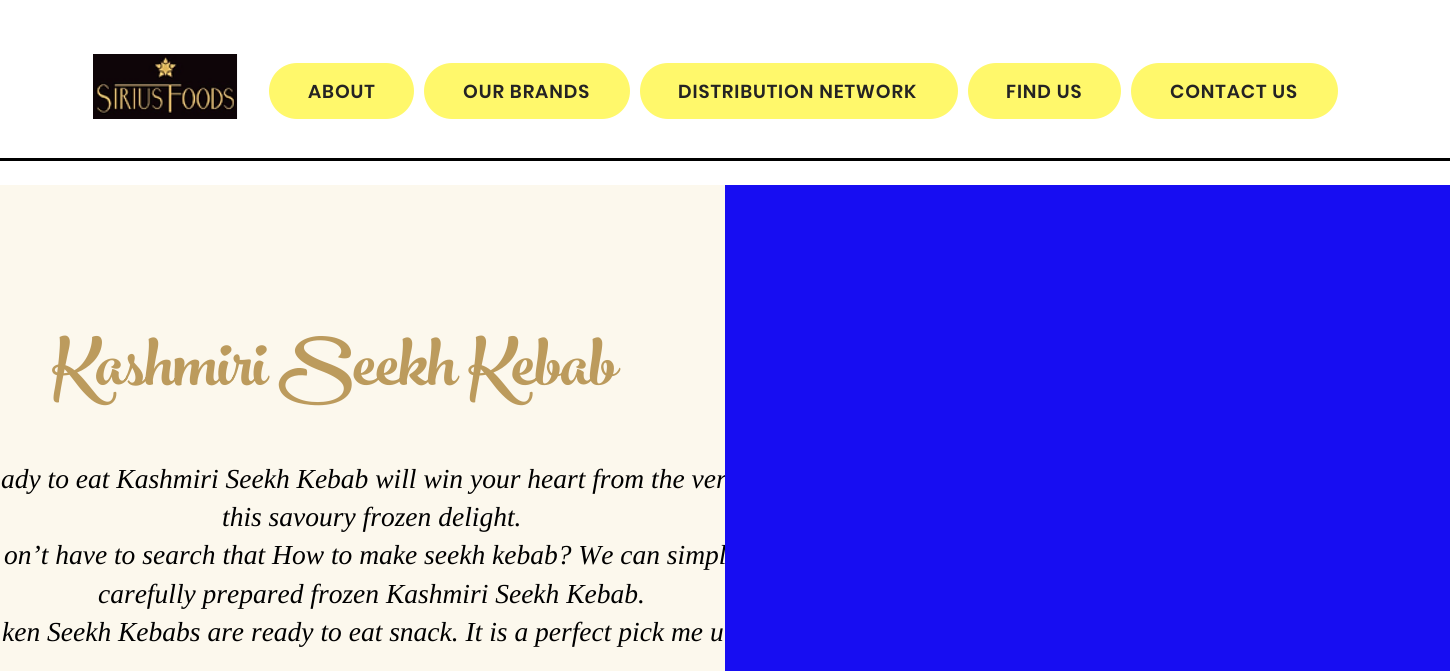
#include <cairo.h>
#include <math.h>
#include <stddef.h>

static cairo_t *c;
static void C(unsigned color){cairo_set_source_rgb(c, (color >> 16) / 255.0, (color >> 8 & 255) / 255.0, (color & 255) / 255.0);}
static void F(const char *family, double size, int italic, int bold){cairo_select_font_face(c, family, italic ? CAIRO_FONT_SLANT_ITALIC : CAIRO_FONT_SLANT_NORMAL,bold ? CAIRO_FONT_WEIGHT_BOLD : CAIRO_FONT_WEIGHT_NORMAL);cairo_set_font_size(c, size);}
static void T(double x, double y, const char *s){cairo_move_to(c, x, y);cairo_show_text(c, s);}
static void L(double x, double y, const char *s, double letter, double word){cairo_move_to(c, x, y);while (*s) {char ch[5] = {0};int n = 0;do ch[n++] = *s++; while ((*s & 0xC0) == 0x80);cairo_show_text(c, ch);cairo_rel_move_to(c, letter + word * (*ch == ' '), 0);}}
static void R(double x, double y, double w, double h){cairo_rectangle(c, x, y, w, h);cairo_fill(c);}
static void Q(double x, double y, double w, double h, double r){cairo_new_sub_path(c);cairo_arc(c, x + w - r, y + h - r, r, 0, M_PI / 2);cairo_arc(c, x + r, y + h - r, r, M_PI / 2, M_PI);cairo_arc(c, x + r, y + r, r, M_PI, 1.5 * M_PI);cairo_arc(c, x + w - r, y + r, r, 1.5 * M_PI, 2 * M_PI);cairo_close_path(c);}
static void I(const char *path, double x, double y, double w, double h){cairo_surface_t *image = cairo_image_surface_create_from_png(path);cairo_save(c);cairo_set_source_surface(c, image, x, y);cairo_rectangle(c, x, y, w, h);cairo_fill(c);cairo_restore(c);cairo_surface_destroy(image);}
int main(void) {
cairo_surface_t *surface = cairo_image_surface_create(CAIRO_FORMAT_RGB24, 1450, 671);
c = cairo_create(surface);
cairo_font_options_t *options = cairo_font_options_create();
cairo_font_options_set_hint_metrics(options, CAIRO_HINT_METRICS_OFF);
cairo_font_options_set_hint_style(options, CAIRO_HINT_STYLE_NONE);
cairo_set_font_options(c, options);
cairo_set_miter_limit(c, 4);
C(0xffffff);
cairo_paint(c);
I("1.png",93,54,145,65);
C(0xfff86b);
Q(269,63,145,56,28);
cairo_fill(c);
F("Poppins SemiBold",18.75,0,0);
C(0x242323);
L(308,98,"ABOUT",.9,0);
C(0xfff86b);
Q(424,63,206,56,28);
cairo_fill(c);
C(0x242323);
L(463,98,"OUR BRANDS",.9,0);
C(0xfff86b);
Q(640,63,318,56,28);
cairo_fill(c);
C(0x242323);
L(678,98,"DISTRIBUTION NETWORK",.9,0);
C(0xfff86b);
Q(968,63,153,56,28);
cairo_fill(c);
C(0x242323);
L(1006,98,"FIND US",.9,0);
C(0xfff86b);
Q(1131,63,207,56,28);
cairo_fill(c);
C(0x242323);
L(1170,98,"CONTACT US",.9,0);
C(0x000000);
R(0,158,1450,3);
C(0xfcf8ed);
R(0,185,725,486);
F("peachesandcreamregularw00",100,0,0);
C(0xbc9b5d);
T(52,385,"Kashmiri Seekh Kebab");
F("Liberation Serif",27.5,1,0);
C(0x000000);
T(1,488,"ady to eat Kashmiri Seekh Kebab will win your heart from the ver");
T(222,526,"this savoury frozen delight.");
T(4,564,"on’t have to search that How to make seekh kebab? We can simpl");
T(98,603,"carefully prepared frozen Kashmiri Seekh Kebab.");
T(2,641,"ken Seekh Kebabs are ready to eat snack. It is a perfect pick me u");
C(0x170df2);
R(725,185,725,486);
cairo_surface_write_to_png(surface, "o.png");
cairo_font_options_destroy(options);
cairo_destroy(c);
cairo_surface_destroy(surface);
return 0;
}
